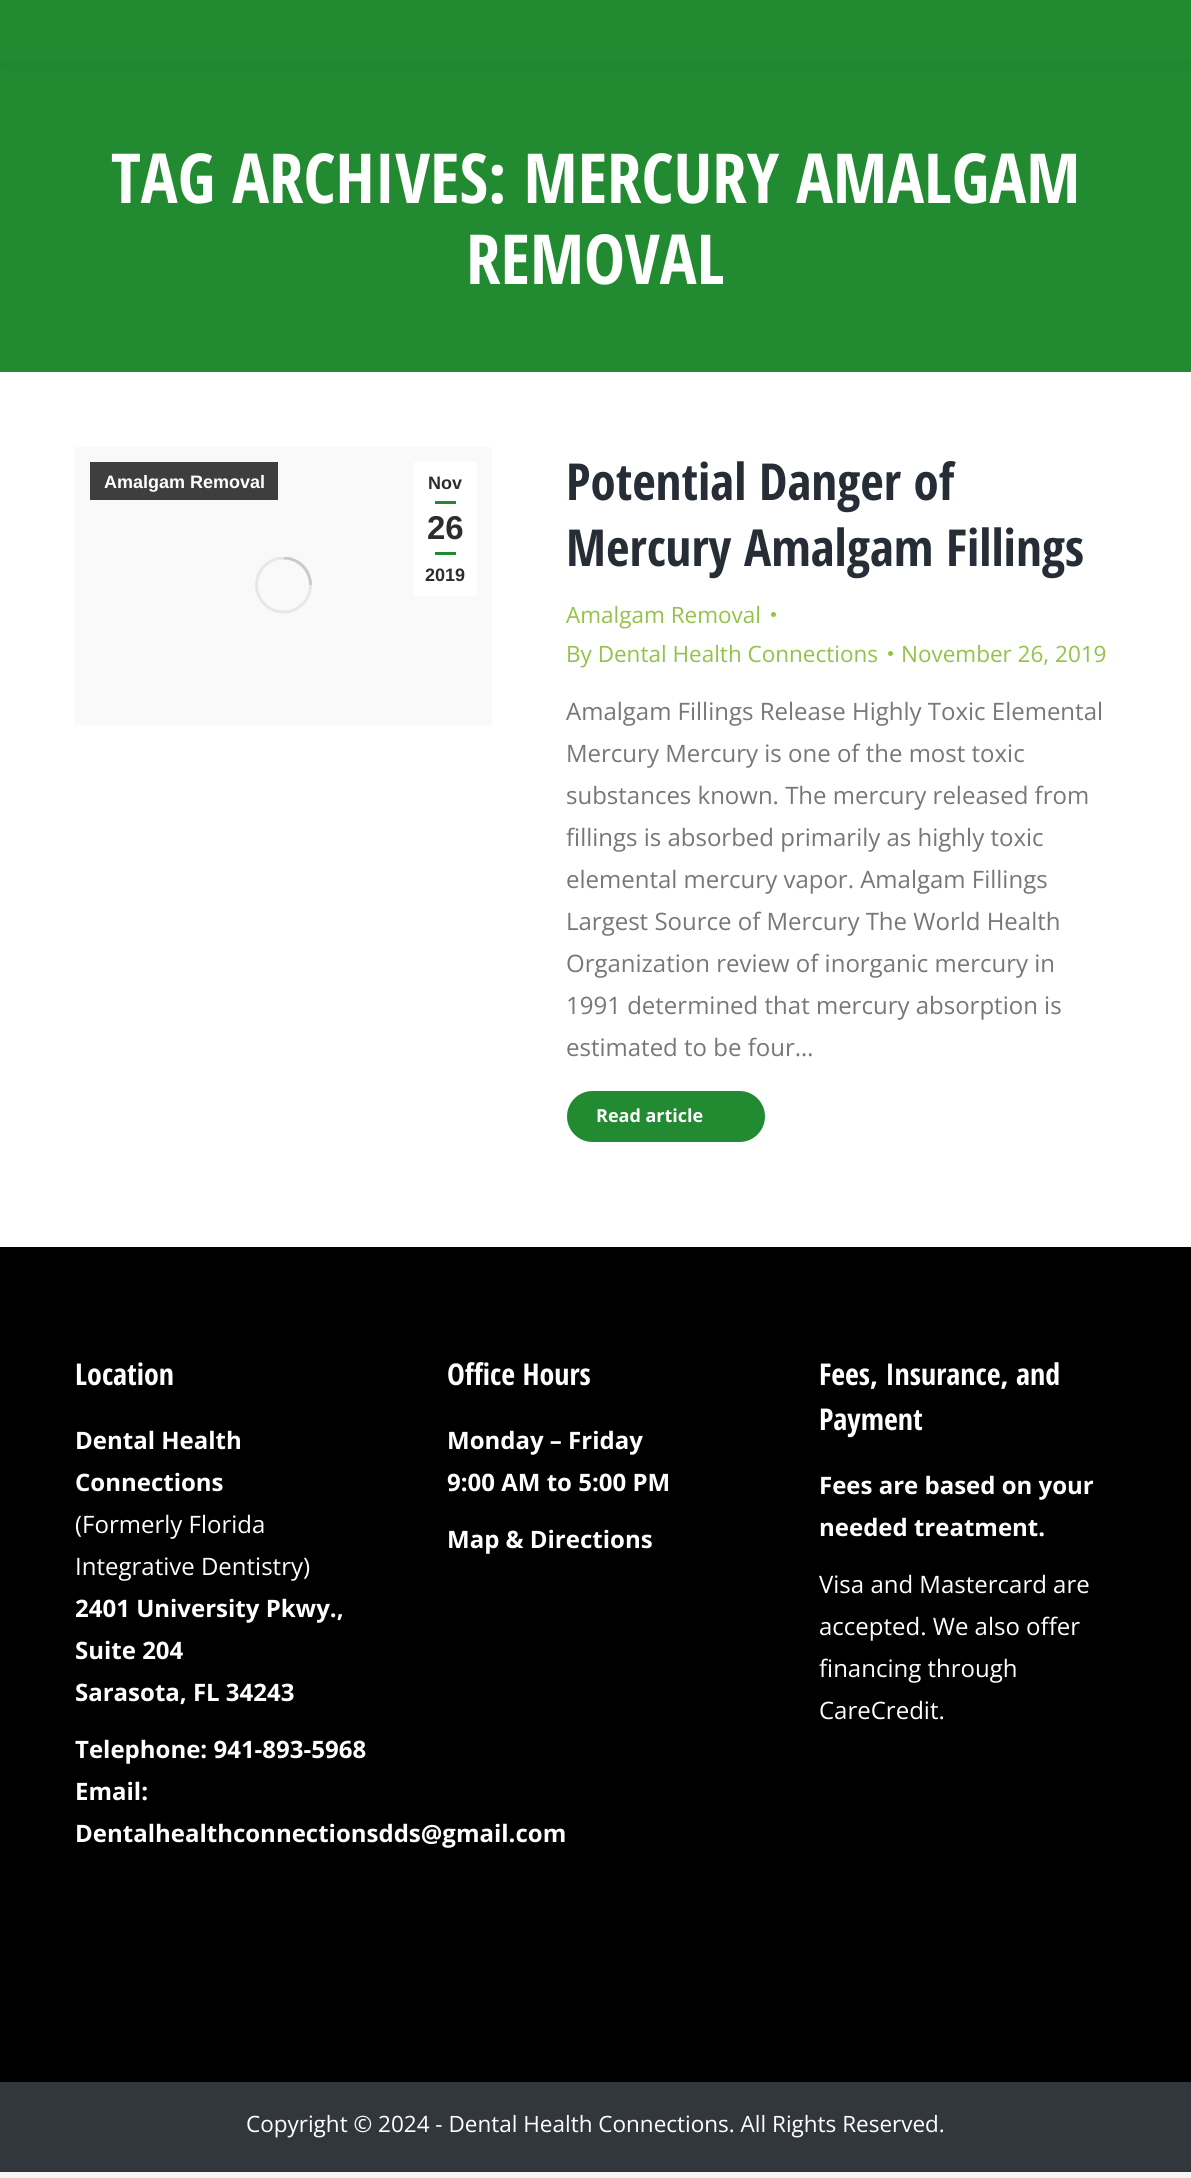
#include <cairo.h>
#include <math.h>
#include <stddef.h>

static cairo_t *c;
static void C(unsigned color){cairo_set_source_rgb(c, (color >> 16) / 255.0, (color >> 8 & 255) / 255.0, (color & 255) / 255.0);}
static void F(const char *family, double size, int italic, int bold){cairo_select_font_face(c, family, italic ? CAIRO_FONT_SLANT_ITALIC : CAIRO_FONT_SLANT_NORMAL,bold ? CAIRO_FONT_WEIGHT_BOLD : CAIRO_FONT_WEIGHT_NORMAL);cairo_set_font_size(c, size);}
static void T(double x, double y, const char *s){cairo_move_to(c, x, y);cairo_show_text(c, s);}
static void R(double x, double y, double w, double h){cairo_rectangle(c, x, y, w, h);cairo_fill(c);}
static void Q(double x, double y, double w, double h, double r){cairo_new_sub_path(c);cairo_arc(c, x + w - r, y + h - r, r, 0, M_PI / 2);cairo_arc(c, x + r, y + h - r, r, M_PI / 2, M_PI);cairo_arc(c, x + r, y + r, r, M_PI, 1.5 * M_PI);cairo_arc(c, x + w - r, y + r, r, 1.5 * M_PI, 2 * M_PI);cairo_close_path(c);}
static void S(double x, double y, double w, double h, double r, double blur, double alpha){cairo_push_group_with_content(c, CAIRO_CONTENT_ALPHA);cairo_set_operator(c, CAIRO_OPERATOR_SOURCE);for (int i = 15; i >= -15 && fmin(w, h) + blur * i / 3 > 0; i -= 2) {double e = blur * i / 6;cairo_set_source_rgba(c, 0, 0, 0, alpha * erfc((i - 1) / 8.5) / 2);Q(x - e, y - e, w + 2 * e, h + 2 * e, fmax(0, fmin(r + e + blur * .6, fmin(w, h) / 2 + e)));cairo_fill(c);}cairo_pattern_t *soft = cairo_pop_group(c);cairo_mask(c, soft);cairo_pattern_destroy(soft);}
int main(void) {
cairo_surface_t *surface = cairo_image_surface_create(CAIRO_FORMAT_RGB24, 1191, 2178);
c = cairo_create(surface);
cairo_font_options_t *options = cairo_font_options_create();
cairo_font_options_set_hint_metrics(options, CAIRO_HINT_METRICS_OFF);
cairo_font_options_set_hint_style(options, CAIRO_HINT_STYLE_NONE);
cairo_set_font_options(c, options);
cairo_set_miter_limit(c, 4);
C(0xf7f7f7);
cairo_paint(c);
C(0xffffff);
R(0,372,1191,875);
C(0x228b32);
R(0,60,1191,312);
C(0x000000);
S(-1,-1,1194,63,0,11,.07);
C(0x228b32);
R(0,0,1191,60);
F("Open Sans Condensed",69,0,1);
C(0xffffff);
T(111,203,"TAG ARCHIVES: MERCURY AMALGAM");
T(466,284,"REMOVAL");
C(0xf9f9f9);
R(75,447,417,278);
cairo_save(c);
cairo_rectangle(c,255,557,57,57);
cairo_clip(c);
cairo_arc(c,283.5,585,27,0,2 * M_PI);
C(0xe7e7e7);
cairo_set_line_width(c,3);
cairo_stroke(c);
cairo_new_path(c);
cairo_move_to(c,310.5,585);
cairo_curve_to(c,310.5,570,298.5,558,283.5,558);
cairo_set_source_rgba(c,0.467,0.467,0.467,0.25);
cairo_stroke(c);
cairo_restore(c);
C(0x3e3e3e);
R(90,462,188,38);
F("Liberation Sans",18,0,1);
C(0xffffff);
T(104,488,"Amalgam Removal");
R(414,462,63,134);
C(0x2d2d2d);
T(428,489,"Nov");
C(0x228b32);
R(435,501,21,3);
F("Liberation Sans",33,0,1);
C(0x2d2d2d);
T(427,539,"26");
C(0x228b32);
R(435,552,21,3);
F("Liberation Sans",18,0,1);
C(0x2d2d2d);
T(425,581,"2019");
F("Open Sans Condensed",51,0,1);
C(0x262d37);
T(566,500,"Potential Danger of");
T(566,566,"Mercury Amalgam Fillings");
F("Open Sans",22.5,0,0);
C(0x93c248);
T(566,623,"Amalgam Removal");
cairo_new_path(c);
cairo_arc(c,773.5,614.5,2.5,0,2 * M_PI);
cairo_fill(c);
T(566,662,"By Dental Health Connections");
cairo_new_path(c);
cairo_arc(c,890.5,653.5,2.5,0,2 * M_PI);
cairo_fill(c);
T(901,662,"November 26, 2019");
F("Open Sans",24,0,0);
C(0x777777);
T(566,720,"Amalgam Fillings Release Highly Toxic Elemental");
T(566,762,"Mercury Mercury is one of the most toxic");
T(566,804,"substances known. The mercury released from");
T(566,846,"fillings is absorbed primarily as highly toxic");
T(566,888,"elemental mercury vapor. Amalgam Fillings");
T(566,930,"Largest Source of Mercury The World Health");
T(566,972,"Organization review of inorganic mercury in");
T(566,1014,"1991 determined that mercury absorption is");
T(566,1056,"estimated to be four…");
C(0x228b32);
Q(567,1091,198,51,25.5);
cairo_fill(c);
F("Open Sans",18,0,1);
C(0xffffff);
T(596,1122,"Read article");
C(0x000000);
R(0,1247,1191,835);
F("Open Sans Condensed",30,0,1);
C(0xffffff);
T(75,1385,"Location");
F("Open Sans",24,0,1);
T(75,1449,"Dental Health");
T(75,1491,"Connections");
F("Open Sans",24,0,0);
T(75,1533,"(Formerly Florida");
T(75,1575,"Integrative Dentistry)");
F("Open Sans",24,0,1);
T(75,1617,"2401 University Pkwy.,");
T(75,1659,"Suite 204");
T(75,1701,"Sarasota, FL 34243");
T(75,1758,"Telephone: 941-893-5968");
T(75,1800,"Email:");
T(75,1842,"Dentalhealthconnectionsdds@gmail.com");
F("Open Sans Condensed",30,0,1);
T(447,1385,"Office Hours");
F("Open Sans",24,0,1);
T(447,1449,"Monday – Friday");
T(447,1491,"9:00 AM to 5:00 PM");
T(447,1548,"Map & Directions");
F("Open Sans Condensed",30,0,1);
T(819,1385,"Fees, Insurance, and");
T(819,1430,"Payment");
F("Open Sans",24,0,1);
T(819,1494,"Fees are based on your");
T(819,1536,"needed treatment.");
F("Open Sans",24,0,0);
T(819,1593,"Visa and Mastercard are");
T(819,1635,"accepted. We also offer");
T(819,1677,"financing through");
T(819,1719,"CareCredit.");
C(0x32373e);
R(0,2082,1191,90);
F("Open Sans",22.5,0,0);
C(0xffffff);
T(246,2132,"Copyright © 2024 - Dental Health Connections. All Rights Reserved.");
cairo_surface_write_to_png(surface, "o.png");
cairo_font_options_destroy(options);
cairo_destroy(c);
cairo_surface_destroy(surface);
return 0;
}
